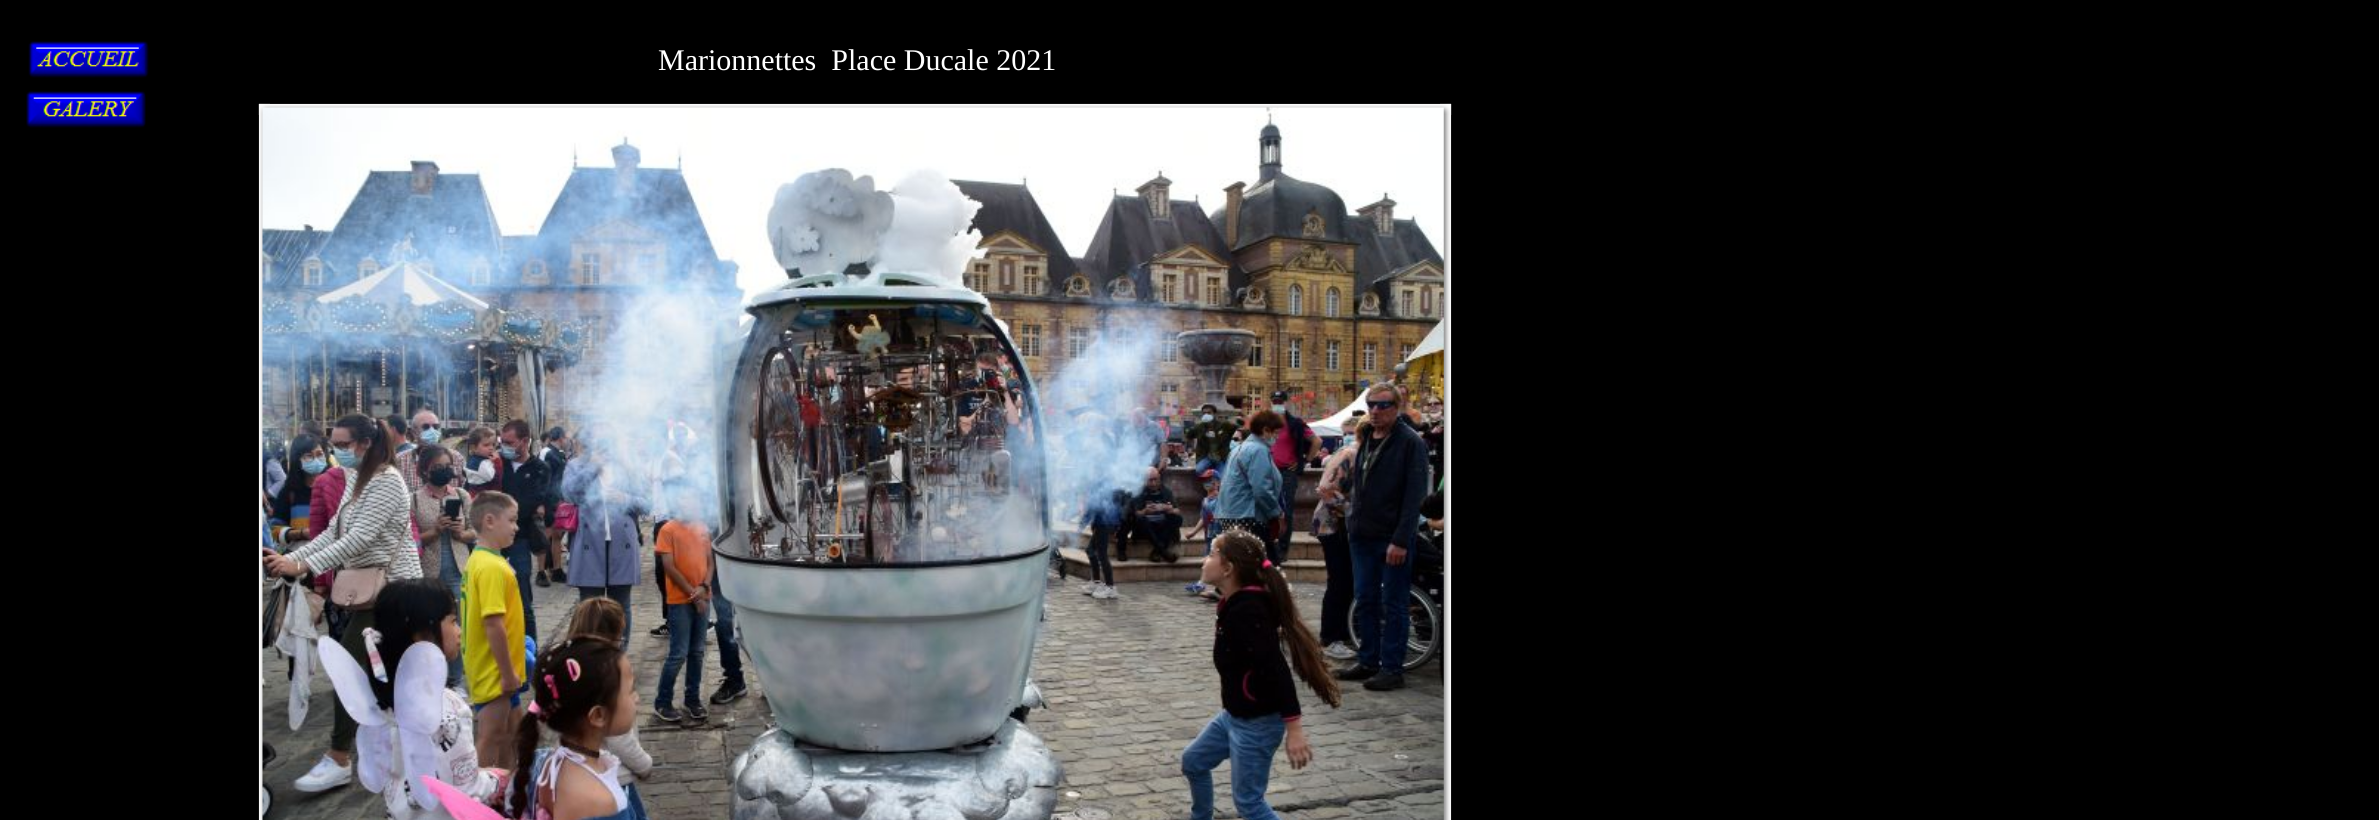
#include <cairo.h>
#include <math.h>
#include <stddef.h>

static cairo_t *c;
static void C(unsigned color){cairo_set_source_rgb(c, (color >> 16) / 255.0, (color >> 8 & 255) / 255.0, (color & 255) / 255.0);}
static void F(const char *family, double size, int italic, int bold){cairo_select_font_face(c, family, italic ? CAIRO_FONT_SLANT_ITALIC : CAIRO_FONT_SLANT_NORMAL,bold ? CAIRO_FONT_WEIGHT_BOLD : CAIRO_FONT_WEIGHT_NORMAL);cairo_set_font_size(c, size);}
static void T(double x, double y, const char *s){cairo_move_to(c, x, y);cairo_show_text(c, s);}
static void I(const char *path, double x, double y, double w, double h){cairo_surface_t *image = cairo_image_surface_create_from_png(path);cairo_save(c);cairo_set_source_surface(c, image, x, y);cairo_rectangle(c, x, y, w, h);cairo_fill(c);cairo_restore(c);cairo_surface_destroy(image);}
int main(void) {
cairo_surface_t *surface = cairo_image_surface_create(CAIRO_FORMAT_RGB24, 2379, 820);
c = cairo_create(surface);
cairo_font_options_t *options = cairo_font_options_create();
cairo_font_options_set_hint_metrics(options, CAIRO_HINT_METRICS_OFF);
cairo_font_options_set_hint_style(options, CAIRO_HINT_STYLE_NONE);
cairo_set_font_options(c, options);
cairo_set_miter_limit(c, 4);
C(0x000000);
cairo_paint(c);
I("1.png",28,41,121,37);
F("Liberation Serif",30,0,0);
C(0xffffff);
T(658,70,"Marionnettes  Place Ducale 2021");
I("2.png",26,91,120,37);
I("3.png",258,103,12,717);
I("4.png",1440,103,12,717);
I("5.png",258,103,1194,12);
I("6.png",1440,103,12,12);
I("7.png",258,103,12,12);
I("8.png",262,107,1182,713);
cairo_surface_write_to_png(surface, "o.png");
cairo_font_options_destroy(options);
cairo_destroy(c);
cairo_surface_destroy(surface);
return 0;
}
